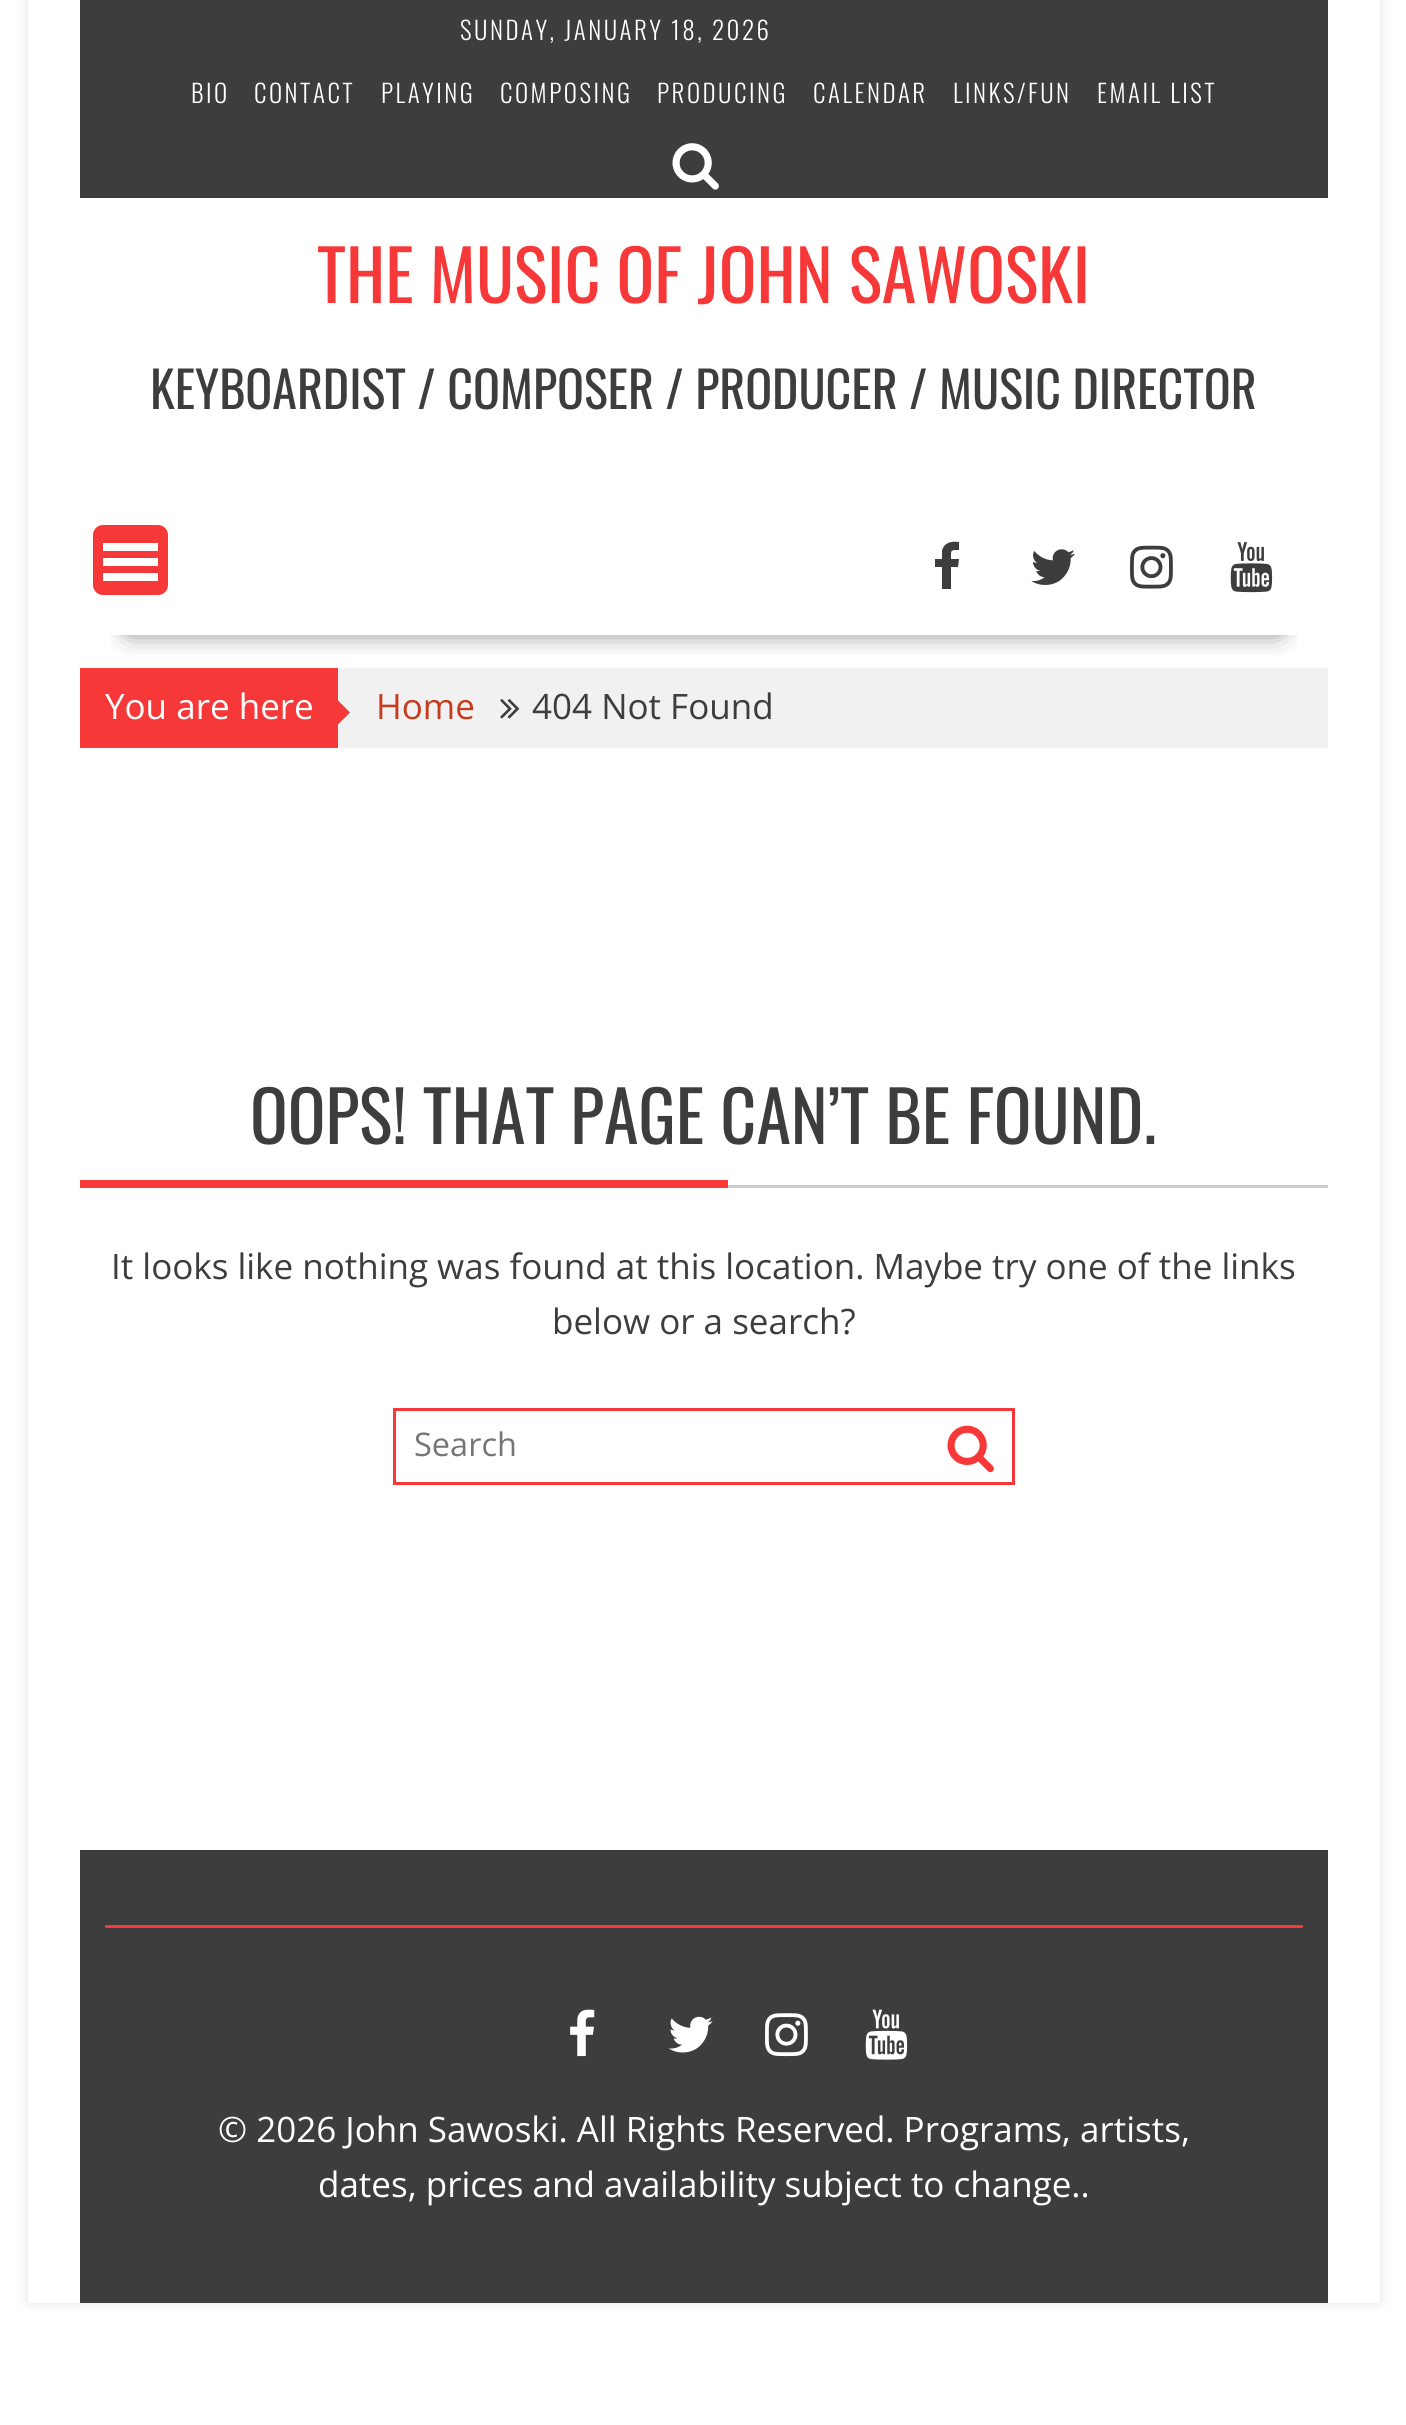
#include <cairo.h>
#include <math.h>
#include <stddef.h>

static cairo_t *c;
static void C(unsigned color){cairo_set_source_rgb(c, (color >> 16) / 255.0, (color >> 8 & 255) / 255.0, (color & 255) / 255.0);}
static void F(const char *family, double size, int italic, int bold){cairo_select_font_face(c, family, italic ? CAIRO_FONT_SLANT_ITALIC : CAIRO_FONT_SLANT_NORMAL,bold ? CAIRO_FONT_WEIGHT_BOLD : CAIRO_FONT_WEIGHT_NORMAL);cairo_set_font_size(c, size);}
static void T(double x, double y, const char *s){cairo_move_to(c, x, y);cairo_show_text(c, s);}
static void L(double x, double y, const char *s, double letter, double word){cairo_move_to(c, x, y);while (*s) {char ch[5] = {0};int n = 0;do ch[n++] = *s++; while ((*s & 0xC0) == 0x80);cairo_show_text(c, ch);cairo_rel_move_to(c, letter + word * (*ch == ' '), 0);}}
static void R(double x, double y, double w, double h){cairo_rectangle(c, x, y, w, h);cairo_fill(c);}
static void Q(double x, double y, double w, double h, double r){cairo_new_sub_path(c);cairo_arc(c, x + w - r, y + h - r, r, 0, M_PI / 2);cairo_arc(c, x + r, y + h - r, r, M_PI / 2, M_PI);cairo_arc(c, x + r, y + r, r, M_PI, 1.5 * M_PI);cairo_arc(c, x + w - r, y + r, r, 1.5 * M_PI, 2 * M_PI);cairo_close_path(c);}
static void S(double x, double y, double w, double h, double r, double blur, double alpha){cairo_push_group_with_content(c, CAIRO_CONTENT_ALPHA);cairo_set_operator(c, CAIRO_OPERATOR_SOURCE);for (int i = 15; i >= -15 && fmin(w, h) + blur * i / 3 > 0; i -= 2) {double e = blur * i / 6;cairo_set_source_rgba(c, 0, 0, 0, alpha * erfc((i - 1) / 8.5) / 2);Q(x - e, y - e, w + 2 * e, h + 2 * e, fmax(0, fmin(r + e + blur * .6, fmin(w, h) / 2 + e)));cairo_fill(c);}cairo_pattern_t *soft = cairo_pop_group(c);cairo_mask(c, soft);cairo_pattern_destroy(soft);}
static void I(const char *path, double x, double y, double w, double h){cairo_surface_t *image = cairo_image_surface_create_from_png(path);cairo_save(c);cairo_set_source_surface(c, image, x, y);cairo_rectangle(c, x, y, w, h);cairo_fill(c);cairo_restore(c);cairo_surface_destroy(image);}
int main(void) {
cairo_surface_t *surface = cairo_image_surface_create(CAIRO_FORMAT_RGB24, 1406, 2425);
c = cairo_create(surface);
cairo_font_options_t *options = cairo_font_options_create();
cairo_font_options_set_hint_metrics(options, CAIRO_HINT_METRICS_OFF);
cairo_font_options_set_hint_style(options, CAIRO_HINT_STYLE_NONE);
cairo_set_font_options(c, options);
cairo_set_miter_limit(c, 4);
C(0xffffff);
cairo_paint(c);
cairo_save(c);
cairo_set_fill_rule(c,CAIRO_FILL_RULE_EVEN_ODD);
cairo_new_path(c);
cairo_move_to(c,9,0);
cairo_line_to(c,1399,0);
cairo_line_to(c,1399,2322);
cairo_line_to(c,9,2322);
cairo_close_path(c);
cairo_move_to(c,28,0);
cairo_line_to(c,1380,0);
cairo_line_to(c,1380,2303);
cairo_line_to(c,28,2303);
cairo_close_path(c);
cairo_clip(c);
C(0x000000);
S(28,0,1352,2303,0,6,.12);
cairo_restore(c);
C(0x3d3d3d);
R(80,0,1248,198);
F("Oswald Light",25,0,0);
C(0xffffff);
L(460,40,"SUNDAY, JANUARY 18, 2026",2.5,0);
L(191,103,"BIO",2.5,0);
L(254,103,"CONTACT",2.5,0);
L(381,103,"PLAYING",2.5,0);
L(500,103,"COMPOSING",2.5,0);
L(657,103,"PRODUCING",2.5,0);
L(813,103,"CALENDAR",2.5,0);
L(953,103,"LINKS/FUN",2.5,0);
L(1097,103,"EMAIL LIST",2.5,0);
I("1.png",672,143,47,47);
F("Oswald",70,0,0);
C(0xf73838);
T(317,303,"THE MUSIC OF JOHN SAWOSKI");
F("Oswald",50,0,0);
C(0x3d3d3d);
T(150,409,"KEYBOARDIST / COMPOSER / PRODUCER / MUSIC DIRECTOR");
C(0xf1f1f1);
R(338,668,990,80);
cairo_save(c);
cairo_rectangle(c,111,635,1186,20);
cairo_clip(c);
C(0x000000);
S(130,598,1148,30,0,14,.75);
cairo_restore(c);
C(0xf73838);
Q(94.5,526.5,72,67,8.5);
cairo_fill_preserve(c);
cairo_set_line_width(c,3);
cairo_stroke(c);
C(0xffffff);
R(103,573,55,8);
R(103,558,55,8);
R(103,543,55,8);
C(0x3d3d3d);
cairo_new_path(c);
cairo_move_to(c,959,542);
cairo_line_to(c,959,550);
cairo_curve_to(c,950,550,951,550,951,559);
cairo_line_to(c,959,559);
cairo_line_to(c,958,567);
cairo_line_to(c,951,567);
cairo_line_to(c,951,589);
cairo_line_to(c,942,589);
cairo_line_to(c,942,567);
cairo_line_to(c,935,567);
cairo_line_to(c,935,559);
cairo_line_to(c,942,559);
cairo_line_to(c,942,551);
cairo_curve_to(c,944,542,952,541,959,542);
cairo_close_path(c);
cairo_fill(c);
I("2.png",1031,549,44,36);
I("3.png",1130,545,43,44);
I("4.png",1230,542,43,51);
C(0xf73838);
R(80,668,258,80);
F("Open Sans",35,0,0);
C(0xffffff);
T(105,719,"You are here");
C(0xf73838);
cairo_new_path(c);
cairo_move_to(c,337.5,725);
cairo_line_to(c,337.5,700);
cairo_line_to(c,350,712.5);
cairo_close_path(c);
cairo_fill(c);
C(0xc63a1d);
T(376,719,"Home");
I("5.png",500,699,20,20);
C(0x3d3d3d);
T(532,719,"404 Not Found");
C(0xcccccc);
R(728,1185,600,3);
F("Oswald",70,0,0);
C(0x3d3d3d);
T(250,1144,"OOPS! THAT PAGE CAN’T BE FOUND.");
C(0xf73838);
R(80,1180,648,8);
F("Open Sans",35,0,0);
C(0x3d3d3d);
T(111,1279,"It looks like nothing was found at this location. Maybe try one of the links");
T(552,1334,"below or a search?");
cairo_rectangle(c,394.5,1409.5,619,74);
C(0xf73838);
cairo_stroke(c);
F("Open Sans",32.5,0,0);
C(0x757575);
T(414,1456,"Search");
I("6.png",947,1425,47,48);
C(0x3d3d3d);
R(80,1850,1248,453);
C(0xf73838);
R(105,1925,1198,3);
I("7.png",570,2009,25,48);
I("8.png",669,2016,44,37);
I("9.png",765,2013,43,44);
I("10.png",865,2009,43,51);
F("Open Sans",35,0,0);
C(0xffffff);
T(218,2142,"© 2026 John Sawoski. All Rights Reserved. Programs, artists,");
T(318,2197,"dates, prices and availability subject to change..");
cairo_surface_write_to_png(surface, "o.png");
cairo_font_options_destroy(options);
cairo_destroy(c);
cairo_surface_destroy(surface);
return 0;
}
